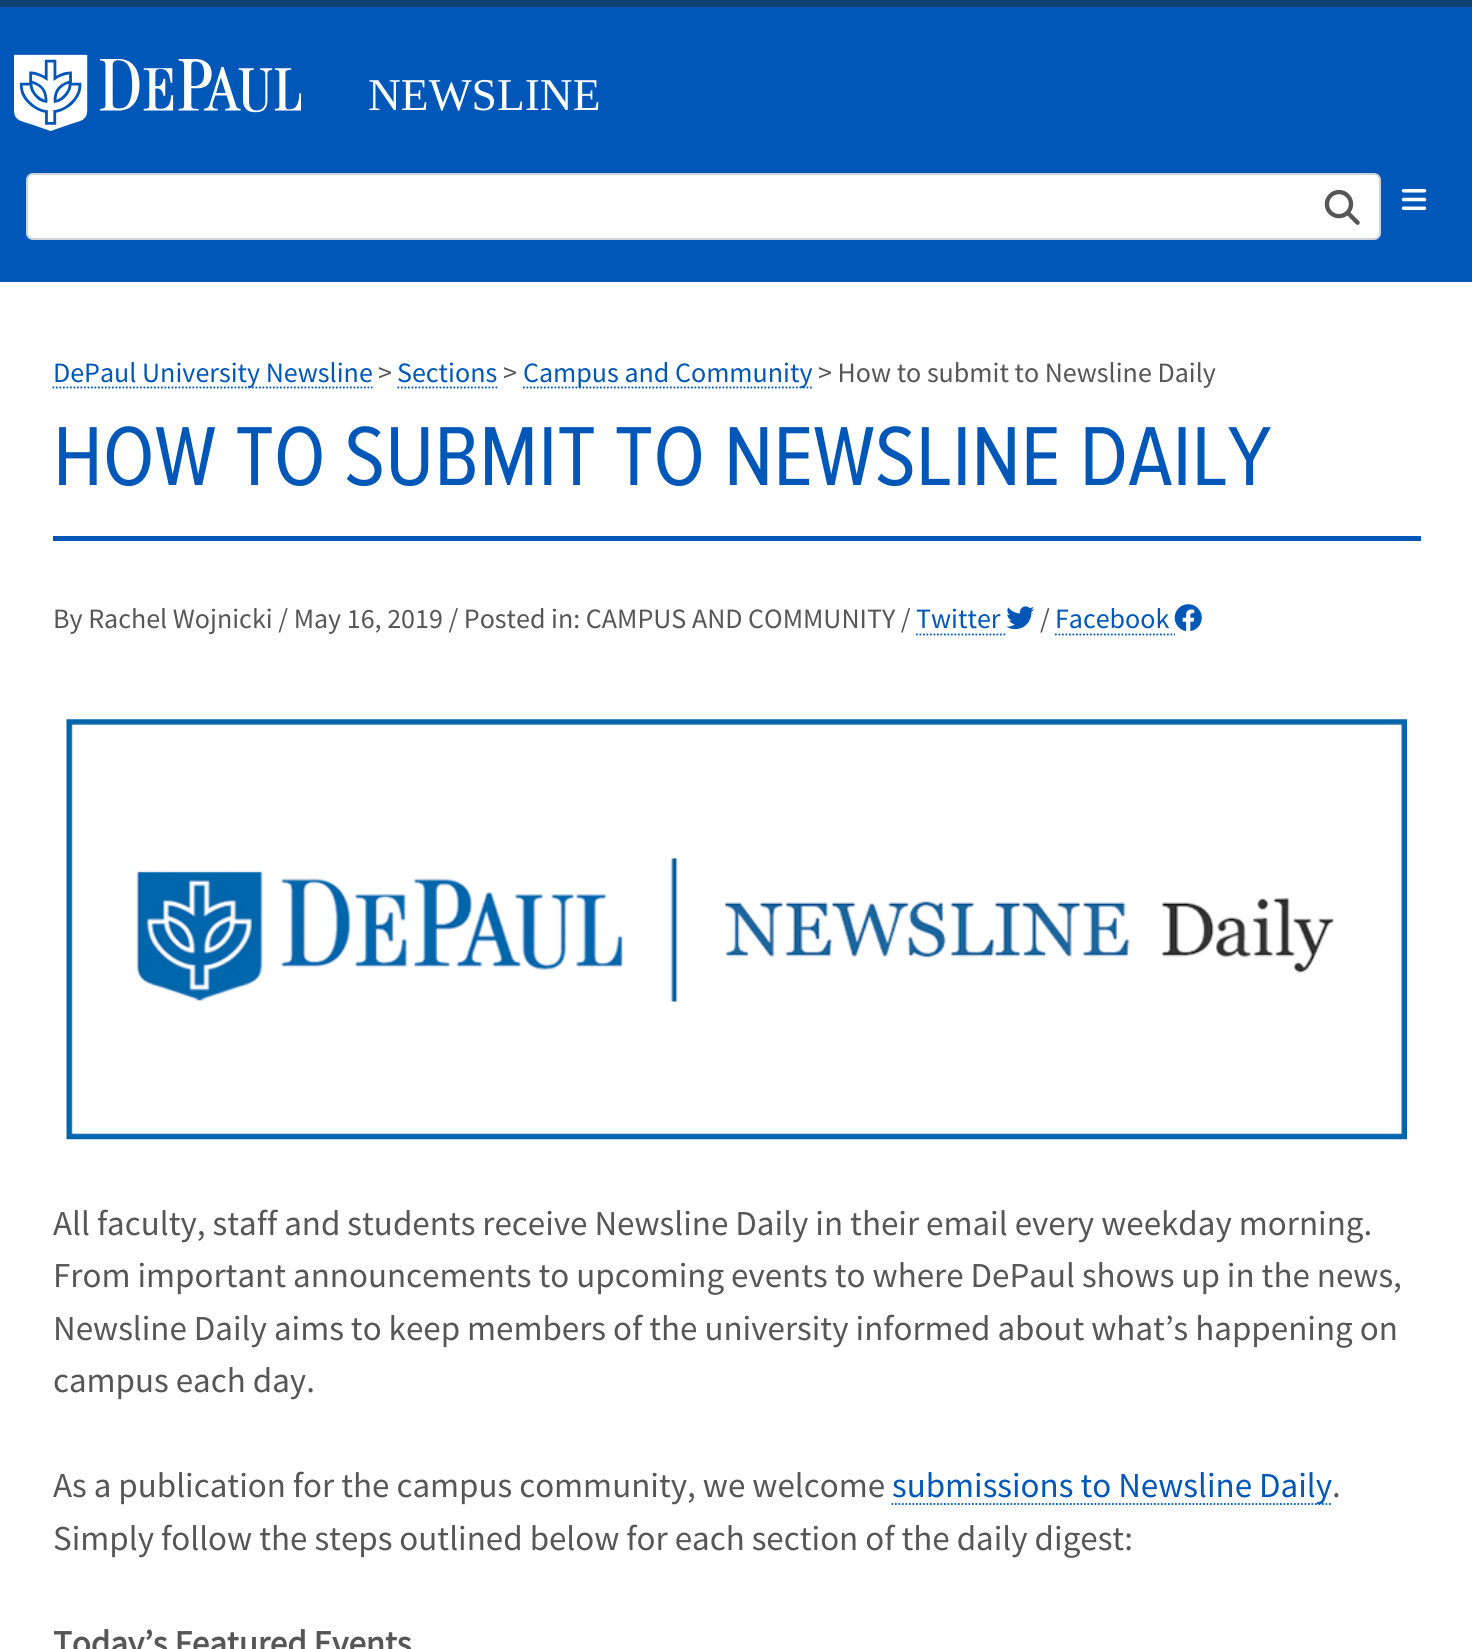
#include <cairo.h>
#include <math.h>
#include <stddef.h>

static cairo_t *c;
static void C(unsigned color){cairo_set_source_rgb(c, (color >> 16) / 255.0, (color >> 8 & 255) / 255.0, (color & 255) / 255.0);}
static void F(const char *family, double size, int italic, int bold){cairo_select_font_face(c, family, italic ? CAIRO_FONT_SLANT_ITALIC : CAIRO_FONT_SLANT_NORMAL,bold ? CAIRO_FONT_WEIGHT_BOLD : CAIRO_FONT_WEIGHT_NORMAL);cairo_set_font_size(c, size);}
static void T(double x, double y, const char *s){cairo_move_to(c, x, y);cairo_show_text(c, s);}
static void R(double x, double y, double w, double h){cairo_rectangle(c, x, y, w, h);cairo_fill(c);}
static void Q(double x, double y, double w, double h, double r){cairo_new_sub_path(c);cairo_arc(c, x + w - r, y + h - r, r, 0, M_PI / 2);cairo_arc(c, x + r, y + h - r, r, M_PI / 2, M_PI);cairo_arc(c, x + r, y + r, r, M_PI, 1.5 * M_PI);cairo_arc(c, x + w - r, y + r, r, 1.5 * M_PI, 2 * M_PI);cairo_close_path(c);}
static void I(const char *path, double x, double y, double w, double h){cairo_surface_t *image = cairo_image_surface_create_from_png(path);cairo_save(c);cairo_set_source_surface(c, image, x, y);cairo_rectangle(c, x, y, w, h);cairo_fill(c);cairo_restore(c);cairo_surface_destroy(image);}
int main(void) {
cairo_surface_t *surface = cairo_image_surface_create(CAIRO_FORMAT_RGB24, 1472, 1649);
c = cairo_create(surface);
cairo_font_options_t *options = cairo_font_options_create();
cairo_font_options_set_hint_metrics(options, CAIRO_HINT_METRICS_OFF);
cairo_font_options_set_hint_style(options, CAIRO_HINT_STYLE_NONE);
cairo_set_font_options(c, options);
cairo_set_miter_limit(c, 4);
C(0xffffff);
cairo_paint(c);
C(0x0e4174);
R(0,0,1472,7);
C(0x0057b7);
R(0,7,1472,275);
I("1.png",14,54,287,77);
F("Liberation Serif",45.5,0,0);
C(0xffffff);
T(368,110,"NEWSLINE");
Q(27,174,1353,65,6);
cairo_fill_preserve(c);
C(0xced4da);
cairo_stroke(c);
I("2.png",1324,189,36,36);
I("3.png",1401,189,26,21);
cairo_new_path(c);
cairo_move_to(c,52.5,387.5);
cairo_line_to(c,372.5,387.5);
C(0x0057b7);
cairo_set_line_width(c,1.8);
cairo_set_dash(c,(double[]){1.75,1.75},2,0);
cairo_stroke(c);
F("Source Sans Pro",28,0,0);
T(53,382,"DePaul University Newsline");
C(0x565656);
T(378,382,">");
C(0x0057b7);
T(397,382,"Sections");
cairo_new_path(c);
cairo_move_to(c,397.5,387.5);
cairo_line_to(c,497.5,387.5);
cairo_stroke(c);
C(0x565656);
T(503,382,">");
cairo_new_path(c);
cairo_move_to(c,523,387.5);
cairo_line_to(c,812.5,387.5);
C(0x0057b7);
cairo_stroke(c);
T(523,382,"Campus and Community");
C(0x565656);
T(818,382,"> How to submit to Newsline Daily");
C(0x0057b7);
R(53,536,1368,5);
F("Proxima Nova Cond",86.75,0,0);
T(53,485,"HOW TO SUBMIT TO NEWSLINE DAILY");
F("Source Sans Pro",28,0,0);
C(0x565656);
T(53,628,"By Rachel Wojnicki / May 16, 2019 / Posted in: CAMPUS AND COMMUNITY /");
C(0x0057b7);
T(916,628,"Twitter");
cairo_new_path(c);
cairo_move_to(c,916,634.5);
cairo_line_to(c,1006,634.5);
cairo_stroke(c);
I("4.png",1006,606,29,24);
C(0x565656);
T(1040,628,"/");
C(0x0057b7);
T(1055,628,"Facebook");
cairo_new_path(c);
cairo_move_to(c,1055,634.5);
cairo_line_to(c,1175,634.5);
cairo_stroke(c);
I("5.png",1174,604,28,28);
I("6.png",66,719,1341,421);
F("Source Sans Pro",35,0,0);
C(0x565656);
T(53,1235,"All faculty, staff and students receive Newsline Daily in their email every weekday morning.");
T(53,1287,"From important announcements to upcoming events to where DePaul shows up in the news,");
T(53,1340,"Newsline Daily aims to keep members of the university informed about what’s happening on");
T(53,1392,"campus each day.");
T(53,1497,"As a publication for the campus community, we welcome");
cairo_new_path(c);
cairo_move_to(c,891.5,1504);
cairo_line_to(c,1331.5,1504);
C(0x0057b7);
cairo_stroke(c);
T(892,1497,"submissions to Newsline Daily");
C(0x565656);
T(1332,1497,".");
T(53,1550,"Simply follow the steps outlined below for each section of the daily digest:");
F("Source Sans Pro",35,0,1);
T(53,1655,"Today’s Featured Events");
cairo_surface_write_to_png(surface, "o.png");
cairo_font_options_destroy(options);
cairo_destroy(c);
cairo_surface_destroy(surface);
return 0;
}
